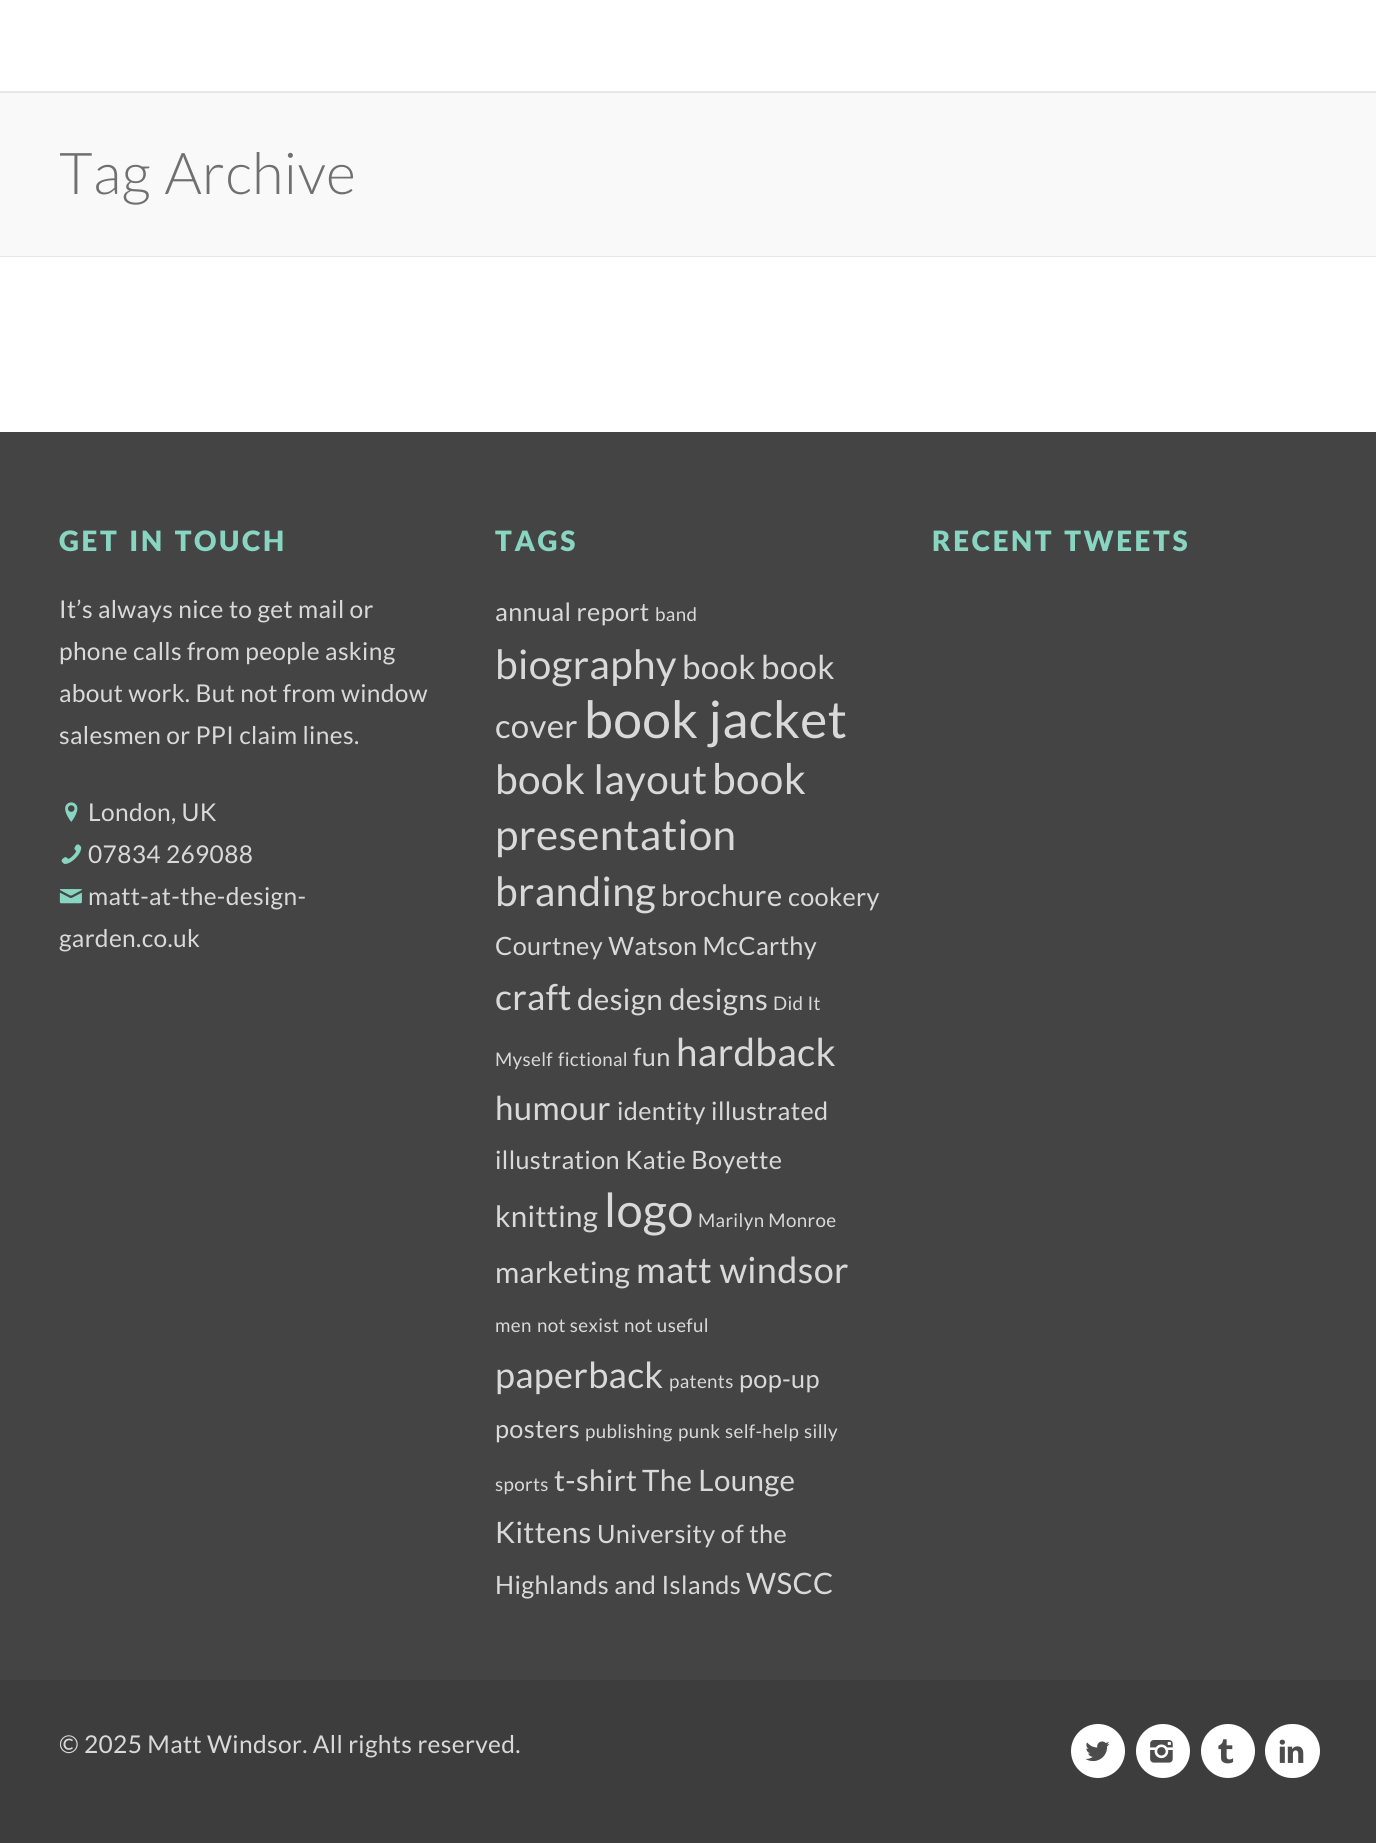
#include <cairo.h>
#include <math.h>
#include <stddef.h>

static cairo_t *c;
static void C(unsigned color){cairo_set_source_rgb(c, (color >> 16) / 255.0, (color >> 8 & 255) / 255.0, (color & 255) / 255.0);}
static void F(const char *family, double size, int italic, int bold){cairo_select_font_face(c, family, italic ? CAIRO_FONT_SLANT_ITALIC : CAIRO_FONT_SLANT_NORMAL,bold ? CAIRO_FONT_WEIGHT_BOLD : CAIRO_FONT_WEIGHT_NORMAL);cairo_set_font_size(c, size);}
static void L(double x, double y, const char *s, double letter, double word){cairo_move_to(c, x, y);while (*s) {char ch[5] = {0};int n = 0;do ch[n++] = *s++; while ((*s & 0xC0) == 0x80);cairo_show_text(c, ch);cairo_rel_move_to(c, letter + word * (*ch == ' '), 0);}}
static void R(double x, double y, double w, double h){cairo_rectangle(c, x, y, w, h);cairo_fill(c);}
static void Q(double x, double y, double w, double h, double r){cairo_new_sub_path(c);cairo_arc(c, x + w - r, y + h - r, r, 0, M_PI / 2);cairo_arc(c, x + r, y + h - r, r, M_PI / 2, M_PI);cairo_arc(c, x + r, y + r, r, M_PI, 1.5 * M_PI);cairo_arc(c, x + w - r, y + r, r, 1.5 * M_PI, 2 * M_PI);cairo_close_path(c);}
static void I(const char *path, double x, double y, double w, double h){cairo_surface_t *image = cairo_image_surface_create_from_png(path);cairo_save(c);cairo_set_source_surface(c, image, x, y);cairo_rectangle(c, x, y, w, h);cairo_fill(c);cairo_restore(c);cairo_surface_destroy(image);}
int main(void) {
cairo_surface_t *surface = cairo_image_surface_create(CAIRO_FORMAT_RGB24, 1376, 1843);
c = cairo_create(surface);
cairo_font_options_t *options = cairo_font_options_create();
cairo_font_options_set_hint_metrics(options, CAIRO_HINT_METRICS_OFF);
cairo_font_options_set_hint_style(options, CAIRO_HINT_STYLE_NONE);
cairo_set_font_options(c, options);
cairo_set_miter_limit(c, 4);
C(0xffffff);
cairo_paint(c);
C(0xf9f9f9);
R(0,93,1376,163);
C(0xe7e7e7);
R(0,91,1376,2);
R(0,256,1376,1);
F("Lato Light",57.75,0,0);
C(0x707070);
L(59,194,"Tag Archive",.35,2);
C(0x444444);
R(0,432,1376,1248);
F("Lato Black",28,0,0);
C(0x88d5c2);
L(59,551,"GET IN TOUCH",2.6,2);
F("Lato",24.5,0,0);
C(0xd9d9d9);
L(59,618,"It’s always nice to get mail or",.35,0);
L(59,660,"phone calls from people asking",.35,0);
L(59,702,"about work. But not from window",.35,0);
L(59,744,"salesmen or PPI claim lines.",.35,0);
I("1.png",65,802,13,20);
L(88,821,"London, UK",.35,0);
I("2.png",61,844,21,20);
L(88,863,"07834 269088",.35,0);
I("3.png",59,889,23,15);
L(88,905,"matt-at-the-design-",.35,0);
L(59,947,"garden.co.uk",.35,0);
F("Lato Black",28,0,0);
C(0x88d5c2);
L(495,551,"TAGS",2.6,0);
F("Lato",25.25,0,0);
C(0xd9d9d9);
L(495,621,"annual report",.35,0);
F("Lato",18.75,0,0);
L(655,621,"band",.35,0);
F("Lato",40.5,0,0);
L(495,679,"biography",.35,0);
F("Lato",33,0,0);
L(682,679,"book",.35,0);
L(761,679,"book",.35,0);
L(495,738,"cover",.35,0);
F("Lato",51.5,0,0);
L(584,738,"book jacket",.35,0);
F("Lato",40.5,0,0);
L(495,794,"book layout",.35,0);
F("Lato",42.25,0,0);
L(712,794,"book",.35,0);
L(495,850,"presentation",.35,0);
F("Lato",40.5,0,0);
L(495,906,"branding",.35,0);
F("Lato",29.5,0,0);
L(661,906,"brochure",.35,0);
F("Lato",25.25,0,0);
L(788,906,"cookery",.35,0);
L(495,955,"Courtney Watson McCarthy",.35,0);
F("Lato",36,0,0);
L(495,1010,"craft",.35,0);
F("Lato",29.5,0,0);
L(577,1010,"design",.35,0);
L(669,1010,"designs",.35,0);
F("Lato",18.75,0,0);
L(773,1010,"Did It",.35,0);
L(495,1066,"Myself",.35,0);
L(558,1066,"fictional",.35,0);
F("Lato",25.25,0,0);
L(633,1066,"fun",.35,0);
F("Lato",38.5,0,0);
L(676,1066,"hardback",.35,0);
F("Lato",33,0,0);
L(495,1120,"humour",.35,0);
F("Lato",25.25,0,0);
L(617,1120,"identity illustrated",.35,0);
L(495,1169,"illustration Katie Boyette",.35,0);
F("Lato",29.5,0,0);
L(495,1227,"knitting",.35,0);
F("Lato",47,0,0);
L(604,1227,"logo",.35,0);
F("Lato",18.75,0,0);
L(698,1227,"Marilyn Monroe",.35,0);
F("Lato",29.5,0,0);
L(495,1283,"marketing",.35,0);
F("Lato",36,0,0);
L(636,1283,"matt windsor",.35,0);
F("Lato",18.75,0,0);
L(495,1332,"men",.35,0);
L(537,1332,"not sexist",.35,0);
L(624,1332,"not useful",.35,0);
F("Lato",36,0,0);
L(495,1388,"paperback",.35,0);
F("Lato",18.75,0,0);
L(669,1388,"patents",.35,0);
F("Lato",25.25,0,0);
L(739,1388,"pop-up",.35,0);
L(495,1438,"posters",.35,0);
F("Lato",18.75,0,0);
L(585,1438,"publishing",.35,0);
L(678,1438,"punk",.35,0);
L(725,1438,"self-help",.35,0);
L(804,1438,"silly",.35,0);
L(495,1491,"sports",.35,0);
F("Lato",29.5,0,0);
L(554,1491,"t-shirt",.35,0);
L(642,1491,"The Lounge",.35,0);
L(495,1543,"Kittens",.35,0);
F("Lato",25.25,0,0);
L(597,1543,"University of the",.35,0);
L(495,1594,"Highlands and Islands",.35,0);
F("Lato",29.5,0,0);
L(746,1594,"WSCC",.35,0);
F("Lato Black",28,0,0);
C(0x88d5c2);
L(932,551,"RECENT TWEETS",2.6,2);
C(0x3d3d3d);
R(0,1680,1376,163);
cairo_save(c);
cairo_rectangle(c,60,1680,1260,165);
cairo_clip(c);
F("Lato",24.5,0,0);
C(0xd9d9d9);
L(59,1753,"© 2025 Matt Windsor. All rights reserved.",.35,0);
cairo_restore(c);
C(0xffffff);
cairo_new_path(c);
cairo_arc(c,1098,1751,27,0,2 * M_PI);
cairo_fill(c);
I("4.png",1085,1741,25,21);
cairo_arc(c,1163,1751,27,0,2 * M_PI);
cairo_fill(c);
I("5.png",1150,1740,23,23);
cairo_arc(c,1228,1751,27,0,2 * M_PI);
cairo_fill(c);
I("6.png",1218,1739,16,25);
Q(1265,1724,55,54,27);
cairo_fill(c);
I("7.png",1279,1739,25,24);
cairo_surface_write_to_png(surface, "o.png");
cairo_font_options_destroy(options);
cairo_destroy(c);
cairo_surface_destroy(surface);
return 0;
}
